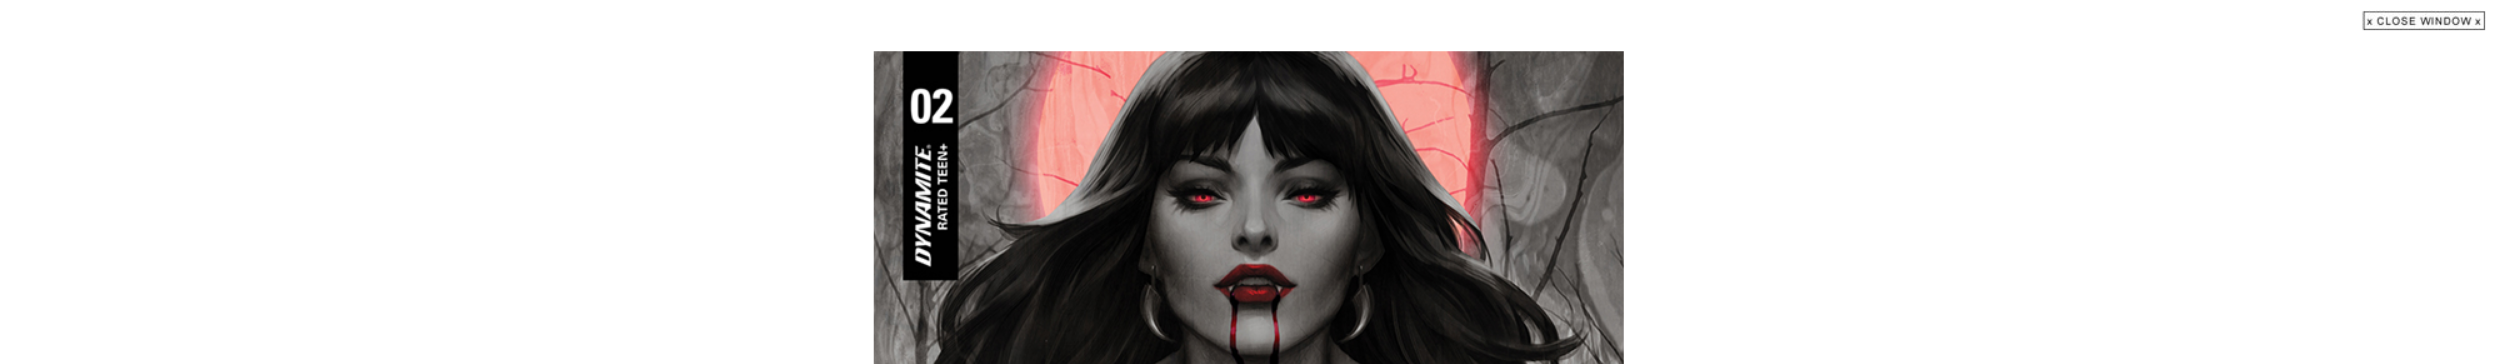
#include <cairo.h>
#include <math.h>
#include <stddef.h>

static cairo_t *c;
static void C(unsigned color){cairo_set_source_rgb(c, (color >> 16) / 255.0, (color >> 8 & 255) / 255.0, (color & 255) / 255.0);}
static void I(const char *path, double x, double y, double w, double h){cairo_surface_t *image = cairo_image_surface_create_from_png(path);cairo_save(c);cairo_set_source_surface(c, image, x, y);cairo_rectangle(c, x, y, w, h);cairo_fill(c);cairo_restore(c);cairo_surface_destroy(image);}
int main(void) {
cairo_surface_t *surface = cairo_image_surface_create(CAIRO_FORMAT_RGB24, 2496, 364);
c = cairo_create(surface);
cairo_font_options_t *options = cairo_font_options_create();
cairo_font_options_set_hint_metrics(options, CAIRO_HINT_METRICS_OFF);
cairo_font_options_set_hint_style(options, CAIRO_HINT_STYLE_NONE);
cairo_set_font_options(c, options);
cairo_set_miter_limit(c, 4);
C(0xffffff);
cairo_paint(c);
I("1.png",2361,10,125,21);
I("2.png",873,51,751,313);
cairo_surface_write_to_png(surface, "o.png");
cairo_font_options_destroy(options);
cairo_destroy(c);
cairo_surface_destroy(surface);
return 0;
}
